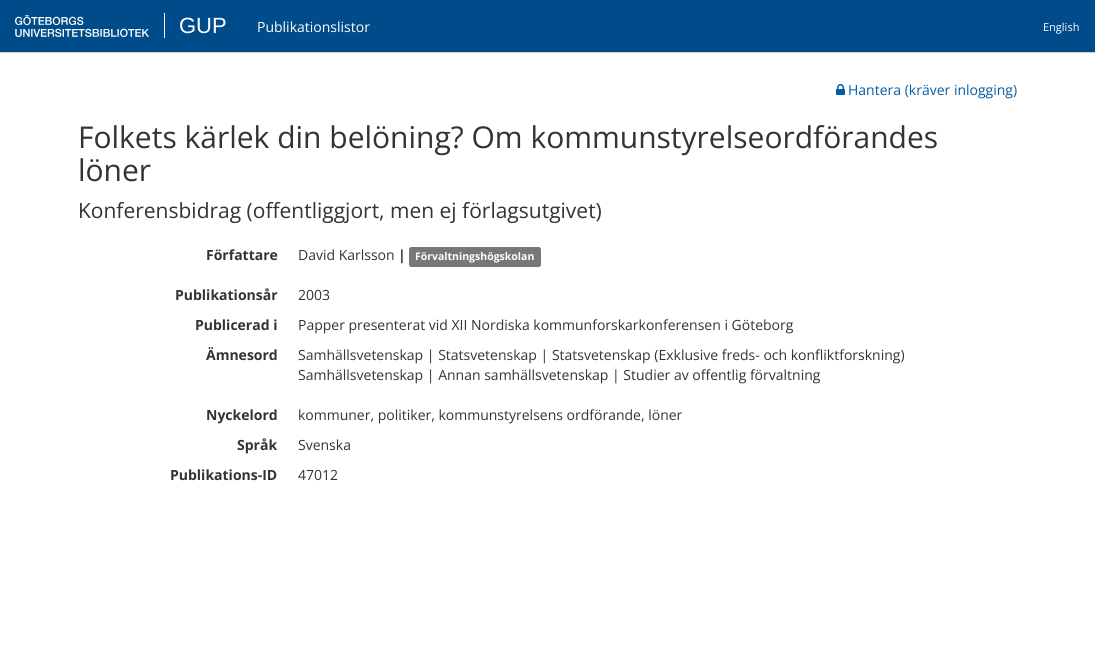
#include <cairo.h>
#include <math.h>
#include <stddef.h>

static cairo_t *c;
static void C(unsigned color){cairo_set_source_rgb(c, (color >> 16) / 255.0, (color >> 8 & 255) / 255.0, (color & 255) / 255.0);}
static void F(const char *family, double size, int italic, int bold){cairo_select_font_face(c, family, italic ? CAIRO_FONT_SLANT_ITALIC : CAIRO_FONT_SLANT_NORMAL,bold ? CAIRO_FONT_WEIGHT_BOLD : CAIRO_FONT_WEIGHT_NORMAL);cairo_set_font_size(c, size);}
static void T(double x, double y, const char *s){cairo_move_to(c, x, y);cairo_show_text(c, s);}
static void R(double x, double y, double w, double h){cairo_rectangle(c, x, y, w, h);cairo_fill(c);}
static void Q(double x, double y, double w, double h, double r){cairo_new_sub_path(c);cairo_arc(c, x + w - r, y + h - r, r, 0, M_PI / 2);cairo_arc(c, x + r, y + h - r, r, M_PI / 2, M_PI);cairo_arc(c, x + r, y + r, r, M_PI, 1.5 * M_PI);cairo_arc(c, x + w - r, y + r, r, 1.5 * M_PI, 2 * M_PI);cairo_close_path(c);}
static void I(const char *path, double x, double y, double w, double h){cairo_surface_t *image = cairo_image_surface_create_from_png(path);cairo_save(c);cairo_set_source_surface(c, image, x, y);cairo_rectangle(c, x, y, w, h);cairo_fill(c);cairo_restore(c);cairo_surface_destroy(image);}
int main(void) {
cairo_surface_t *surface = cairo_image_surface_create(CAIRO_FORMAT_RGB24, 1095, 648);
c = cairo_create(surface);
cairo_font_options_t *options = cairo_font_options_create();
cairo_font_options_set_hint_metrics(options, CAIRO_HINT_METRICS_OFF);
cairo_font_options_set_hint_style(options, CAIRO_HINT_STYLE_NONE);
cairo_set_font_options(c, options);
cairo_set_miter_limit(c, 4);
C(0xffffff);
cairo_paint(c);
C(0x004b89);
R(0,0,1095,52);
C(0xcccccc);
R(0,52,1095,1);
I("1.png",15,15,134,22);
C(0xffffff);
R(164,13,1,25);
F("Liberation Sans",22,0,0);
T(179,33,"GUP");
F("Open Sans",14,0,0);
T(257,32,"Publikationslistor");
F("Open Sans",11,0,0);
T(1043,31,"English");
I("2.png",836,84,9,11);
F("Open Sans",14,0,0);
C(0x025da6);
T(848,95,"Hantera (kräver inlogging)");
F("Open Sans",30,0,0);
C(0x333333);
T(78,148,"Folkets kärlek din belöning? Om kommunstyrelseordförandes");
T(78,181,"löner");
F("Open Sans",21,0,0);
T(78,218,"Konferensbidrag (offentliggjort, men ej förlagsutgivet)");
F("Open Sans",14,0,1);
T(206,260,"Författare");
F("Open Sans",14,0,0);
T(298,260,"David Karlsson");
F("Open Sans",14,0,1);
T(398,260,"|");
C(0x777777);
Q(409,247,132,20,2.5);
cairo_fill(c);
F("Open Sans",10.5,0,1);
C(0xffffff);
T(415,260,"Förvaltningshögskolan");
F("Open Sans",14,0,1);
C(0x333333);
T(175,300,"Publikationsår");
F("Open Sans",14,0,0);
T(298,300,"2003");
F("Open Sans",14,0,1);
T(195,330,"Publicerad i");
F("Open Sans",14,0,0);
T(298,330,"Papper presenterat vid XII Nordiska kommunforskarkonferensen i Göteborg");
F("Open Sans",14,0,1);
T(206,360,"Ämnesord");
F("Open Sans",14,0,0);
T(298,360,"Samhällsvetenskap | Statsvetenskap | Statsvetenskap (Exklusive freds- och konfliktforskning)");
T(298,380,"Samhällsvetenskap | Annan samhällsvetenskap | Studier av offentlig förvaltning");
F("Open Sans",14,0,1);
T(206,420,"Nyckelord");
F("Open Sans",14,0,0);
T(298,420,"kommuner, politiker, kommunstyrelsens ordförande, löner");
F("Open Sans",14,0,1);
T(237,450,"Språk");
F("Open Sans",14,0,0);
T(298,450,"Svenska");
F("Open Sans",14,0,1);
T(170,480,"Publikations-ID");
F("Open Sans",14,0,0);
T(298,480,"47012");
cairo_surface_write_to_png(surface, "o.png");
cairo_font_options_destroy(options);
cairo_destroy(c);
cairo_surface_destroy(surface);
return 0;
}
